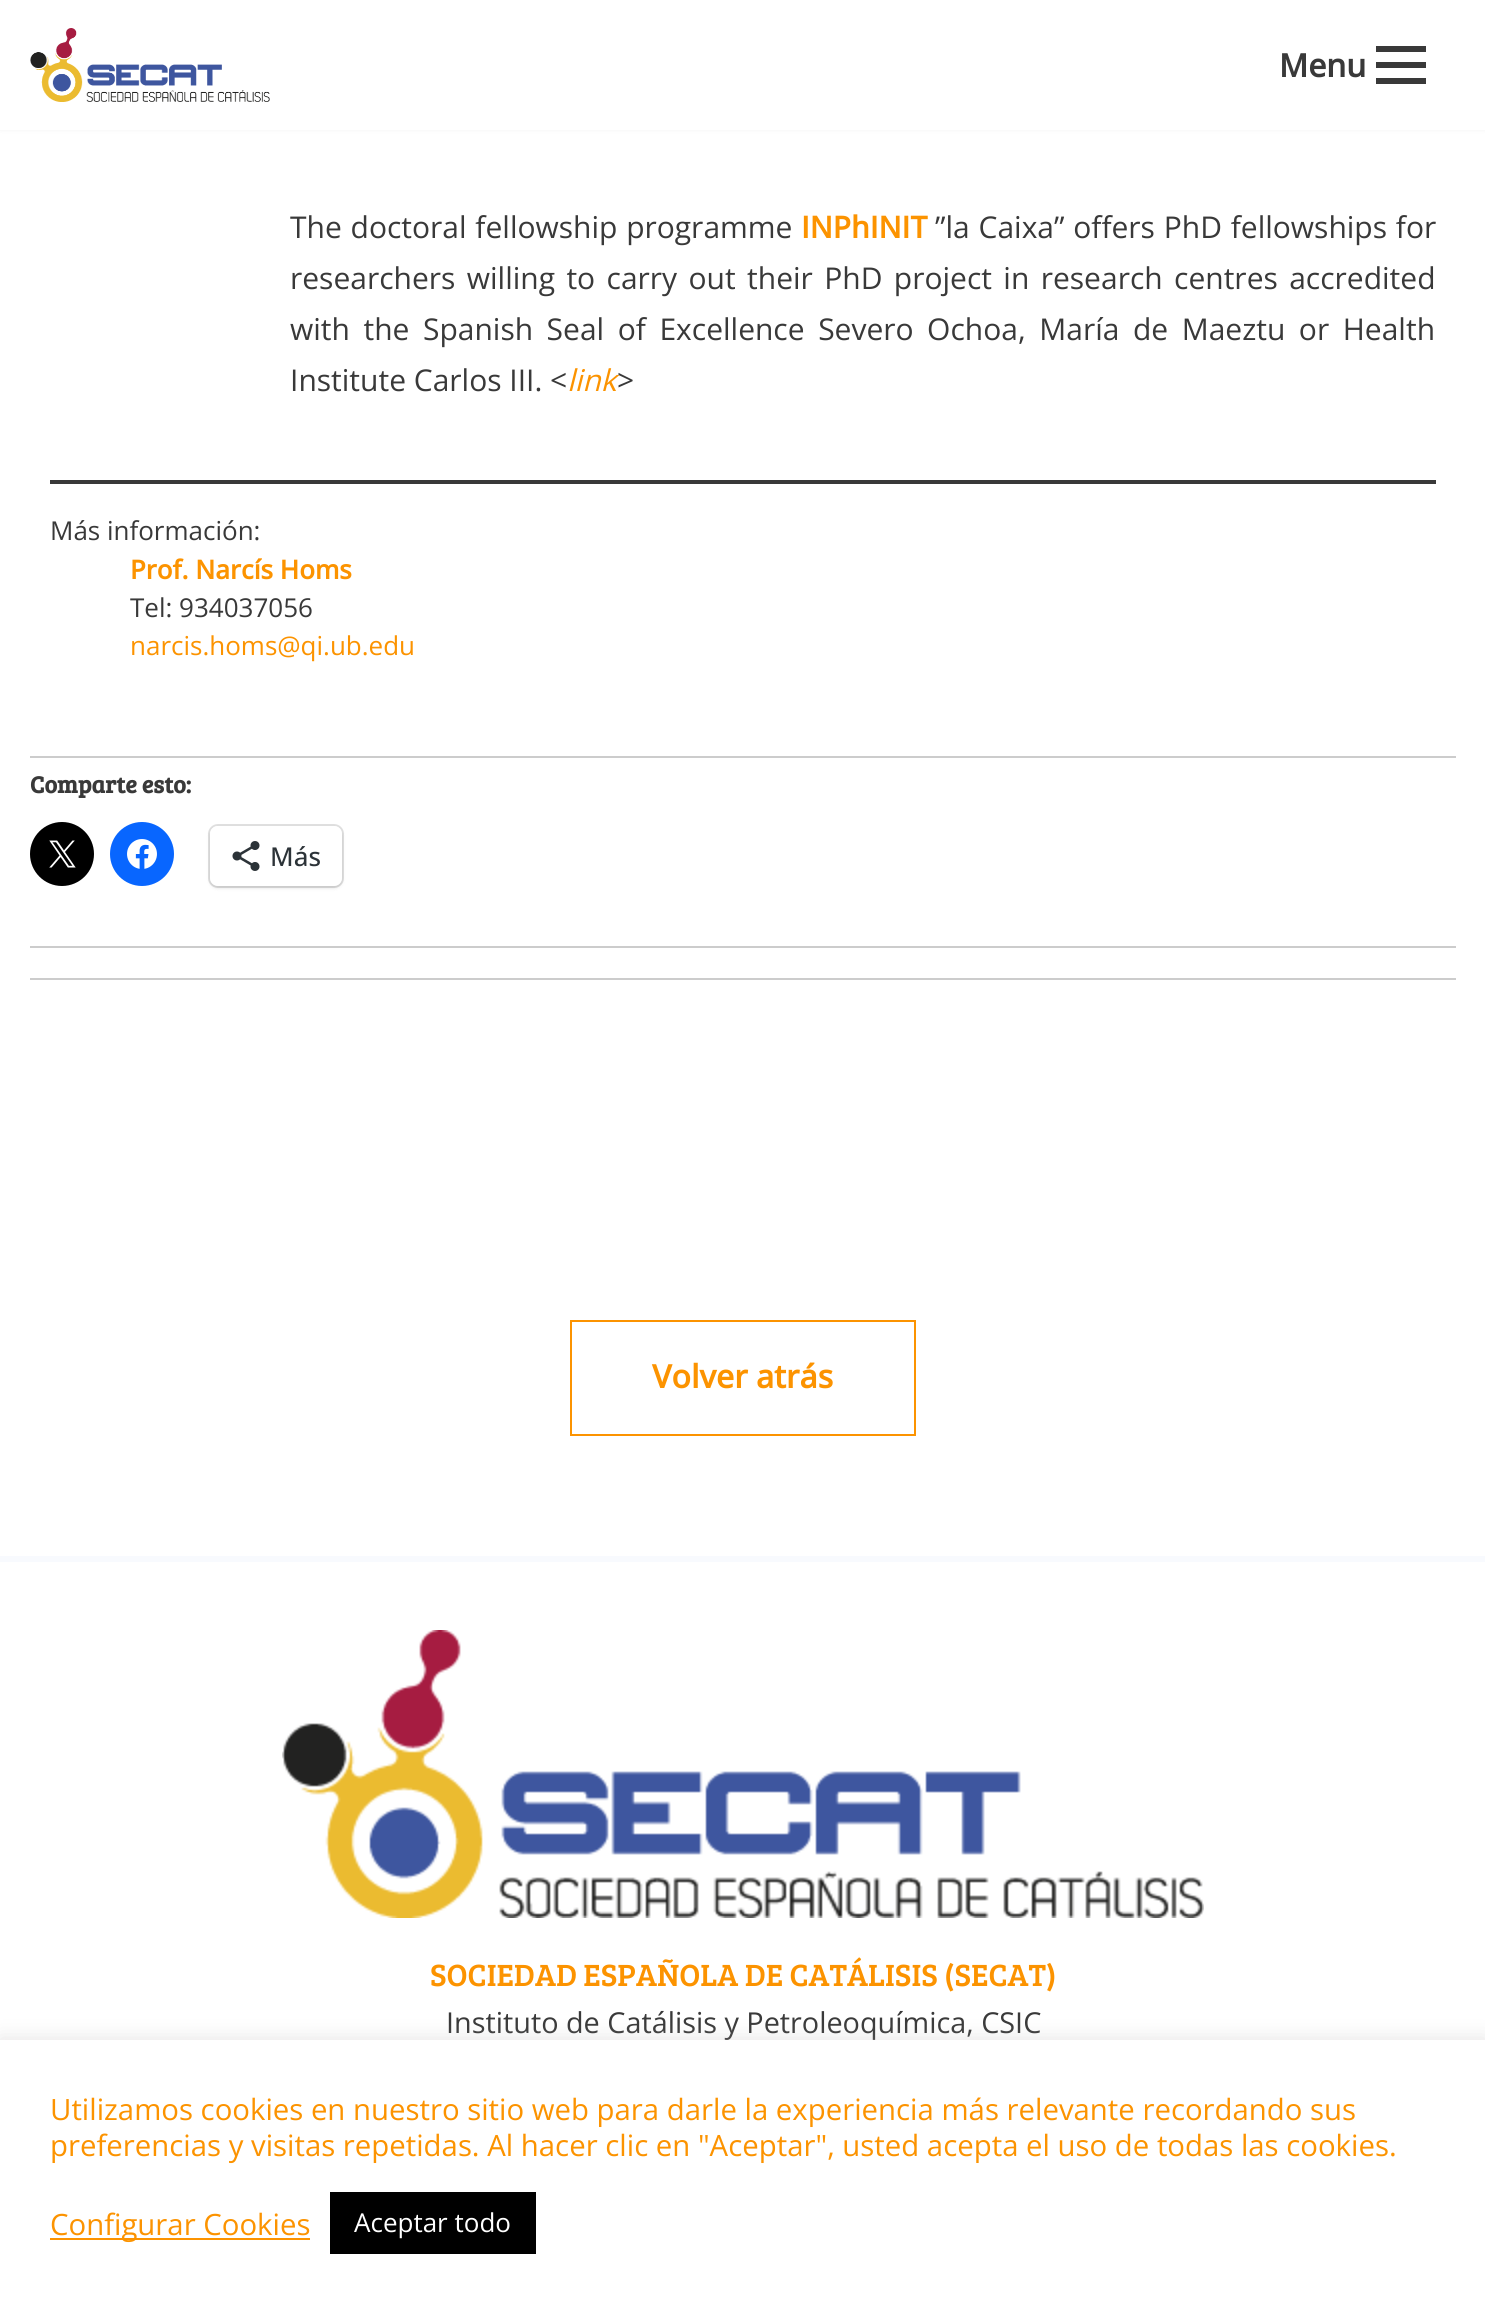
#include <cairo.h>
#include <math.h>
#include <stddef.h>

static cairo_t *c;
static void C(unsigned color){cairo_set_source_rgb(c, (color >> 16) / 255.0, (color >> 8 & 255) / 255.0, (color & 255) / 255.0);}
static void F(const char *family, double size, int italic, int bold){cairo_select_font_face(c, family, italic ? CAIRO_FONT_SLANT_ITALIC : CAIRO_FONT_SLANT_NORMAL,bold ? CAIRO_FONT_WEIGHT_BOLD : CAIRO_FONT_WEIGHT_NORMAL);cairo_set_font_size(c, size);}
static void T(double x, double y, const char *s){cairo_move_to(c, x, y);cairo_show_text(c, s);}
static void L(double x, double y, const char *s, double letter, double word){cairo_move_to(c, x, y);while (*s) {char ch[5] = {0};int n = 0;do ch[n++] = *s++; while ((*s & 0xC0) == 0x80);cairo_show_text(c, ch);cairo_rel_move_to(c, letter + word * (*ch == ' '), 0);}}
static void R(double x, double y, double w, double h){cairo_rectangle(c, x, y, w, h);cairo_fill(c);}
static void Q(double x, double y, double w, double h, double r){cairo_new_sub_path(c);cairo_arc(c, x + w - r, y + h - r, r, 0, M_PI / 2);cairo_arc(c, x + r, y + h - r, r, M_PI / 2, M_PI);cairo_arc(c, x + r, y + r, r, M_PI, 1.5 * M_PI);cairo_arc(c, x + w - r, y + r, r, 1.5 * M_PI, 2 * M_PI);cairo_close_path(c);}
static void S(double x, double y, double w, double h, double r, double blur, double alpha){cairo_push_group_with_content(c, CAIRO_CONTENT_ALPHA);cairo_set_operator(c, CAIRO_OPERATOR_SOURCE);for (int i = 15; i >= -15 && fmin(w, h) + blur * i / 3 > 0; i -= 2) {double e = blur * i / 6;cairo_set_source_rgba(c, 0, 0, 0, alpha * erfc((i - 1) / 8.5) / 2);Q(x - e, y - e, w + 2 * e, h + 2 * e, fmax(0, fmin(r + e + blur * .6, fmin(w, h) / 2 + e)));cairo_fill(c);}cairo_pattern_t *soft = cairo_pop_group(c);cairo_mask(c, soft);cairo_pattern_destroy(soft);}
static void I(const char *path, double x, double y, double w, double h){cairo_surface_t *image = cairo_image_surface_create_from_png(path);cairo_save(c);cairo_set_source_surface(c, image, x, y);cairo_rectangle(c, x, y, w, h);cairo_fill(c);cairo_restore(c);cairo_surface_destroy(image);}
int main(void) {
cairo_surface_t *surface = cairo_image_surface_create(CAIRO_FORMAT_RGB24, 1485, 2314);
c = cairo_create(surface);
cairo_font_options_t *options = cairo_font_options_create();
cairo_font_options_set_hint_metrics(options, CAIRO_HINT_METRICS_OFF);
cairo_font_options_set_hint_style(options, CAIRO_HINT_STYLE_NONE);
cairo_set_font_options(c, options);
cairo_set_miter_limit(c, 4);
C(0xffffff);
cairo_paint(c);
C(0x000000);
S(0,-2,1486,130,0,3,.1);
C(0xffffff);
R(0,0,1485,130);
I("1.png",30,28,240,74);
F("Open Sans",32,0,1);
C(0x393939);
T(1279,77,"Menu");
R(1376,46,50,6);
R(1376,62,50,6);
R(1376,78,50,6);
C(0xcccccc);
R(30,978,1426,2);
F("Open Sans",30,0,0);
C(0x393939);
L(290,238,"The doctoral fellowship programme",0,1);
F("Open Sans",30,0,1);
C(0xfc9300);
T(801,238,"INPhINIT");
F("Open Sans",30,0,0);
C(0x393939);
L(935,238,"”la Caixa” offers PhD fellowships for",0,1);
L(290,289,"researchers willing to carry out their PhD project in research centres accredited",0,3.6);
L(290,340,"with the Spanish Seal of Excellence Severo Ochoa, María de Maeztu or Health",0,5.75);
T(290,391,"Institute Carlos III. <");
F("Open Sans",30,1,0);
C(0xfc9300);
T(567,391,"link");
F("Open Sans",30,0,0);
C(0x393939);
T(617,391,">");
R(50,480,1386,4);
F("Open Sans",26,0,0);
T(50,540,"Más información:");
F("Open Sans",26,0,1);
C(0xfc9300);
T(130,579,"Prof. Narcís Homs");
F("Open Sans",26,0,0);
C(0x393939);
T(130,617,"Tel: 934037056");
C(0xfc9300);
T(130,655,"narcis.homs@qi.ub.edu");
C(0xcccccc);
R(30,756,1426,2);
R(30,946,1426,2);
F("Bree Serif",24,0,1);
C(0x393939);
T(30,793,"Comparte esto:");
C(0x000000);
cairo_new_path(c);
cairo_arc(c,62,854,32,0,2 * M_PI);
cairo_fill(c);
I("2.png",49,840,27,28);
C(0x0866ff);
cairo_arc(c,142,854,32,0,2 * M_PI);
cairo_fill(c);
I("3.png",127,839,30,30);
Q(209,825,134,62,9);
C(0xe0e0e0);
cairo_stroke(c);
C(0x000000);
S(210,828,132,60,8,2,.12);
C(0xffffff);
Q(210,826,132,60,8);
cairo_fill(c);
I("4.png",232,841,28,30);
F("Open Sans Medium",26,0,0);
C(0x2c3338);
T(270,866,"Más");
cairo_rectangle(c,571,1321,344,114);
C(0xfc9300);
cairo_stroke(c);
F("Open Sans",32,0,1);
T(652,1388,"Volver atrás");
C(0xf8fafe);
R(0,1556,1485,6);
I("5.png",282,1630,922,288);
F("Bree Serif",31.7,0,0);
C(0xfc9300);
T(430,1986,"SOCIEDAD ESPAÑOLA DE CATÁLISIS (SECAT)");
F("Open Sans",28.8,0,0);
C(0x393939);
T(446,2033,"Instituto de Catálisis y Petroleoquímica, CSIC");
C(0xacabab);
S(0,2038,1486,274,0,10,.3);
C(0xffffff);
R(0,2040,1485,274);
F("Open Sans",29.35,0,0);
C(0xfc9300);
T(50,2120,"Utilizamos cookies en nuestro sitio web para darle la experiencia más relevante recordando sus");
T(50,2156,"preferencias y visitas repetidas. Al hacer clic en \"Aceptar\", usted acepta el uso de todas las cookies.");
R(50,2238,260,2);
T(50,2235,"Configurar Cookies");
C(0x000000);
R(330,2192,206,62);
F("Open Sans",26,0,0);
C(0xffffff);
T(354,2232,"Aceptar todo");
cairo_surface_write_to_png(surface, "o.png");
cairo_font_options_destroy(options);
cairo_destroy(c);
cairo_surface_destroy(surface);
return 0;
}
